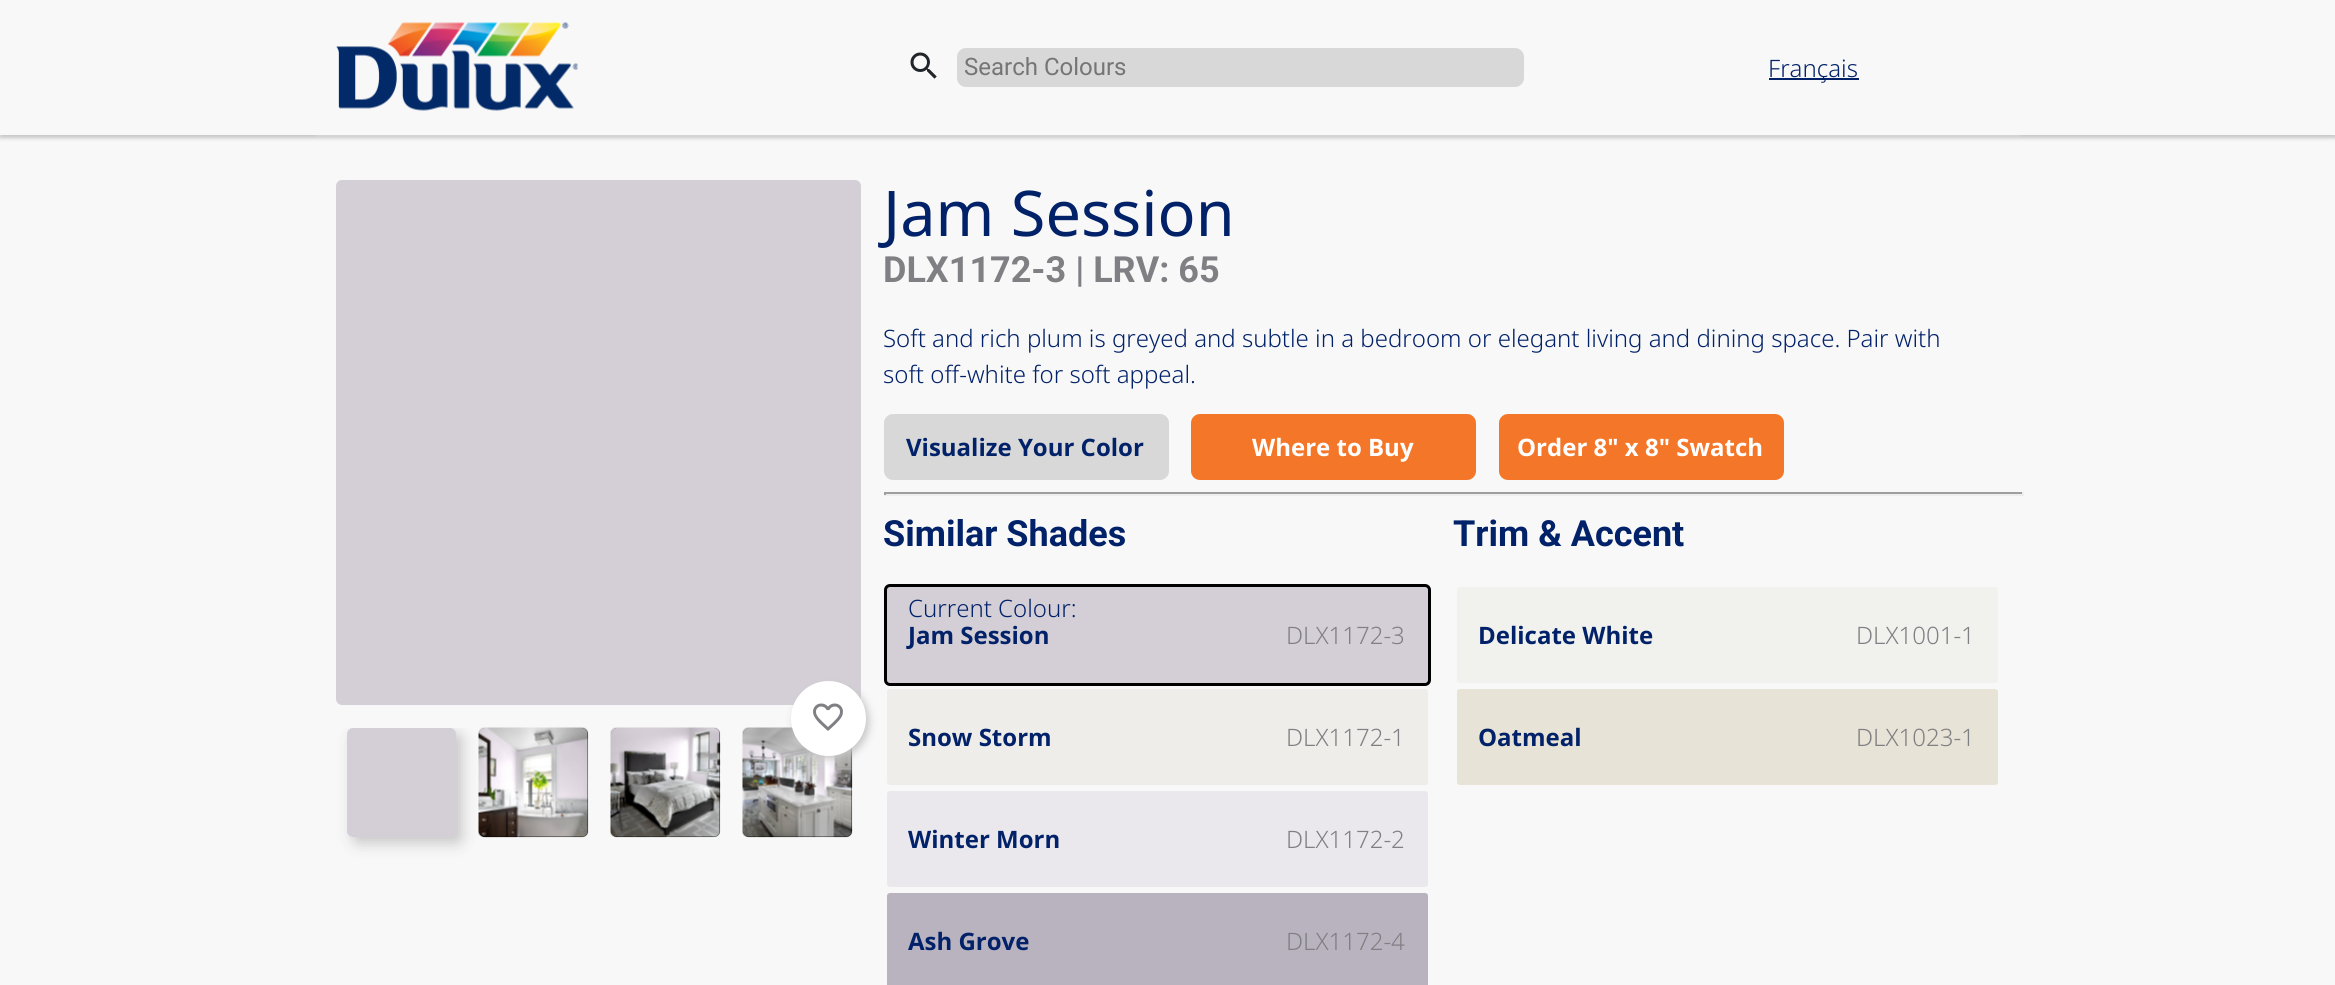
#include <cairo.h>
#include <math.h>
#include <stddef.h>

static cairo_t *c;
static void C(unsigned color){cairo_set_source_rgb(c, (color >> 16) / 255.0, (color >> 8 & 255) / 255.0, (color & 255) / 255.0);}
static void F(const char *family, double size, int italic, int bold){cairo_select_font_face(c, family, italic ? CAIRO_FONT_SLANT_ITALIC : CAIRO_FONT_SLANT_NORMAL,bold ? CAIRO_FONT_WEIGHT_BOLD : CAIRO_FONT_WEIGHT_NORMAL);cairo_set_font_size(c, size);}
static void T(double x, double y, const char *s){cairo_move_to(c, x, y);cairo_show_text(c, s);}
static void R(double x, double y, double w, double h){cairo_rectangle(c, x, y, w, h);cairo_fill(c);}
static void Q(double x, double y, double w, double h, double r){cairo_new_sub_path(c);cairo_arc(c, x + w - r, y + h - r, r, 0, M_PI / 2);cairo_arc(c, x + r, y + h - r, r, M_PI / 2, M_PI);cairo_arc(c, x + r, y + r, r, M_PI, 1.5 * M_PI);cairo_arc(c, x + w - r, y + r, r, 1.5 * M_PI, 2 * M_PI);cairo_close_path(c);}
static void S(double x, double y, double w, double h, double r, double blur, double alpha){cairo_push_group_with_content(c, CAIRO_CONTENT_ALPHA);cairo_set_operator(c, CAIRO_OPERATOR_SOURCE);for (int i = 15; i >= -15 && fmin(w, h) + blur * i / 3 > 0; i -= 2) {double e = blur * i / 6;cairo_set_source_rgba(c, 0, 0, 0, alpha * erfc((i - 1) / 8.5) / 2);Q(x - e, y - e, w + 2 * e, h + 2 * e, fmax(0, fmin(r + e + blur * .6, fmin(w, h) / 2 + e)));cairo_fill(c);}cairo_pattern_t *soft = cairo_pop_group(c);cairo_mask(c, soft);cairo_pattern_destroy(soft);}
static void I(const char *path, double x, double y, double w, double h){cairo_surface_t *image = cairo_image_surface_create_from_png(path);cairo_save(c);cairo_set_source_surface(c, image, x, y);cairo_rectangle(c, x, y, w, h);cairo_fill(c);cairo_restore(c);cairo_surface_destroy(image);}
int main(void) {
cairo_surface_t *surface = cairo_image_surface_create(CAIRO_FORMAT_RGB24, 2335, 985);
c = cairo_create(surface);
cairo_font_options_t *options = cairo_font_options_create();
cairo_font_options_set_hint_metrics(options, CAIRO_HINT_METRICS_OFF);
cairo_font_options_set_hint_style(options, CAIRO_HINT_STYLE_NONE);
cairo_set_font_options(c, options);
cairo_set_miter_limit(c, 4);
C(0xf8f8f8);
cairo_paint(c);
cairo_save(c);
cairo_rectangle(c,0,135,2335,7);
cairo_clip(c);
C(0xc6c6c6);
S(0,3,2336,135,0,2,1);
cairo_restore(c);
cairo_save(c);
cairo_rectangle(c,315,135,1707,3);
cairo_clip(c);
S(318,8,1701,126,0,2,1);
cairo_restore(c);
I("1.png",336,22,242,89);
I("2.png",910,52,27,27);
C(0xd8d8d8);
Q(957,48,567,39,9);
cairo_fill(c);
F("Roboto",24,0,0);
C(0x757575);
T(964,75,"Search Colours");
C(0x012169);
R(1769,78,90,2);
F("Noto Sans Light",24,0,0);
T(1768,77,"Français");
C(0xd4cfd6);
Q(336,180,525,525,6);
cairo_fill(c);
C(0x000000);
Q(743,728,109,109,6);
cairo_fill(c);
I("6.png",742,727,111,111);
C(0xc6c6c6);
S(794,684,75,75,37.5,4,1);
C(0xffffff);
cairo_arc(c,828.5,718.5,37.5,0,2 * M_PI);
cairo_fill(c);
I("3.png",813,703,30,28);
cairo_save(c);
cairo_rectangle(c,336,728,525,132);
cairo_clip(c);
C(0xc6c6c6);
S(353,734,109,109,6,7.5,1);
cairo_restore(c);
C(0xd4cfd6);
Q(347,728,109,109,6);
cairo_fill(c);
C(0x000000);
Q(479,728,109,109,6);
cairo_fill(c);
I("4.png",478,727,111,111);
Q(611,728,109,109,6);
cairo_fill(c);
I("5.png",610,727,111,111);
F("Noto Sans",63,0,0);
C(0x012169);
T(883,236,"Jam Session");
F("Roboto",36,0,1);
C(0x807f83);
T(883,282,"DLX1172-3 | LRV: 65");
F("Noto Sans Light",24,0,0);
C(0x012169);
T(883,347,"Soft and rich plum is greyed and subtle in a bedroom or elegant living and dining space. Pair with");
T(883,383,"soft off-white for soft appeal.");
C(0xd8d8d8);
Q(884,414,285,66,9);
cairo_fill(c);
F("Noto Sans",24,0,1);
C(0x012169);
T(906,456,"Visualize Your Color");
C(0xf47729);
Q(1191,414,285,66,9);
cairo_fill(c);
C(0xffffff);
T(1252,456,"Where to Buy");
C(0xf47729);
Q(1499,414,285,66,9);
cairo_fill(c);
C(0xffffff);
T(1517,456,"Order 8\" x 8\" Swatch");
C(0x9f9f9f);
R(884,492,1140,2);
C(0xeeeeee);
R(2022,492,2,3);
R(884,494,1140,2);
C(0x9f9f9f);
R(884,492,2,3);
F("Roboto",36,0,1);
C(0x012169);
T(883,546,"Similar Shades");
C(0xd4cfd6);
Q(885.5,585.5,544,99,4.5);
cairo_fill_preserve(c);
C(0x000000);
cairo_set_line_width(c,3);
cairo_stroke(c);
F("Noto Sans Light",24,0,0);
C(0x012169);
T(908,617,"Current Colour:");
F("Noto Sans",24,0,1);
T(908,644,"Jam Session");
F("Noto Sans Light",24,0,0);
C(0x807f83);
T(1286,644,"DLX1172-3");
C(0xeeedea);
Q(885.5,687.5,544,99,4.5);
cairo_fill_preserve(c);
C(0xf8f8f8);
cairo_stroke(c);
F("Noto Sans",24,0,1);
C(0x012169);
T(908,746,"Snow Storm");
F("Noto Sans Light",24,0,0);
C(0x807f83);
T(1286,746,"DLX1172-1");
C(0xeae8ec);
Q(885.5,789.5,544,99,4.5);
cairo_fill_preserve(c);
C(0xf8f8f8);
cairo_stroke(c);
F("Noto Sans",24,0,1);
C(0x012169);
T(908,848,"Winter Morn");
F("Noto Sans Light",24,0,0);
C(0x807f83);
T(1286,848,"DLX1172-2");
C(0xb9b3bf);
Q(885.5,891.5,544,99,4.5);
cairo_fill_preserve(c);
C(0xf8f8f8);
cairo_stroke(c);
F("Noto Sans",24,0,1);
C(0x012169);
T(908,950,"Ash Grove");
F("Noto Sans Light",24,0,0);
C(0x807f83);
T(1286,950,"DLX1172-4");
F("Roboto",36,0,1);
C(0x012169);
T(1453,546,"Trim & Accent");
C(0xf1f2ee);
Q(1455.5,585.5,544,99,4.5);
cairo_fill_preserve(c);
C(0xf8f8f8);
cairo_stroke(c);
F("Noto Sans",24,0,1);
C(0x012169);
T(1478,644,"Delicate White");
F("Noto Sans Light",24,0,0);
C(0x807f83);
T(1856,644,"DLX1001-1");
C(0xe7e3d6);
Q(1455.5,687.5,544,99,4.5);
cairo_fill_preserve(c);
C(0xf8f8f8);
cairo_stroke(c);
F("Noto Sans",24,0,1);
C(0x012169);
T(1478,746,"Oatmeal");
F("Noto Sans Light",24,0,0);
C(0x807f83);
T(1856,746,"DLX1023-1");
cairo_surface_write_to_png(surface, "o.png");
cairo_font_options_destroy(options);
cairo_destroy(c);
cairo_surface_destroy(surface);
return 0;
}
